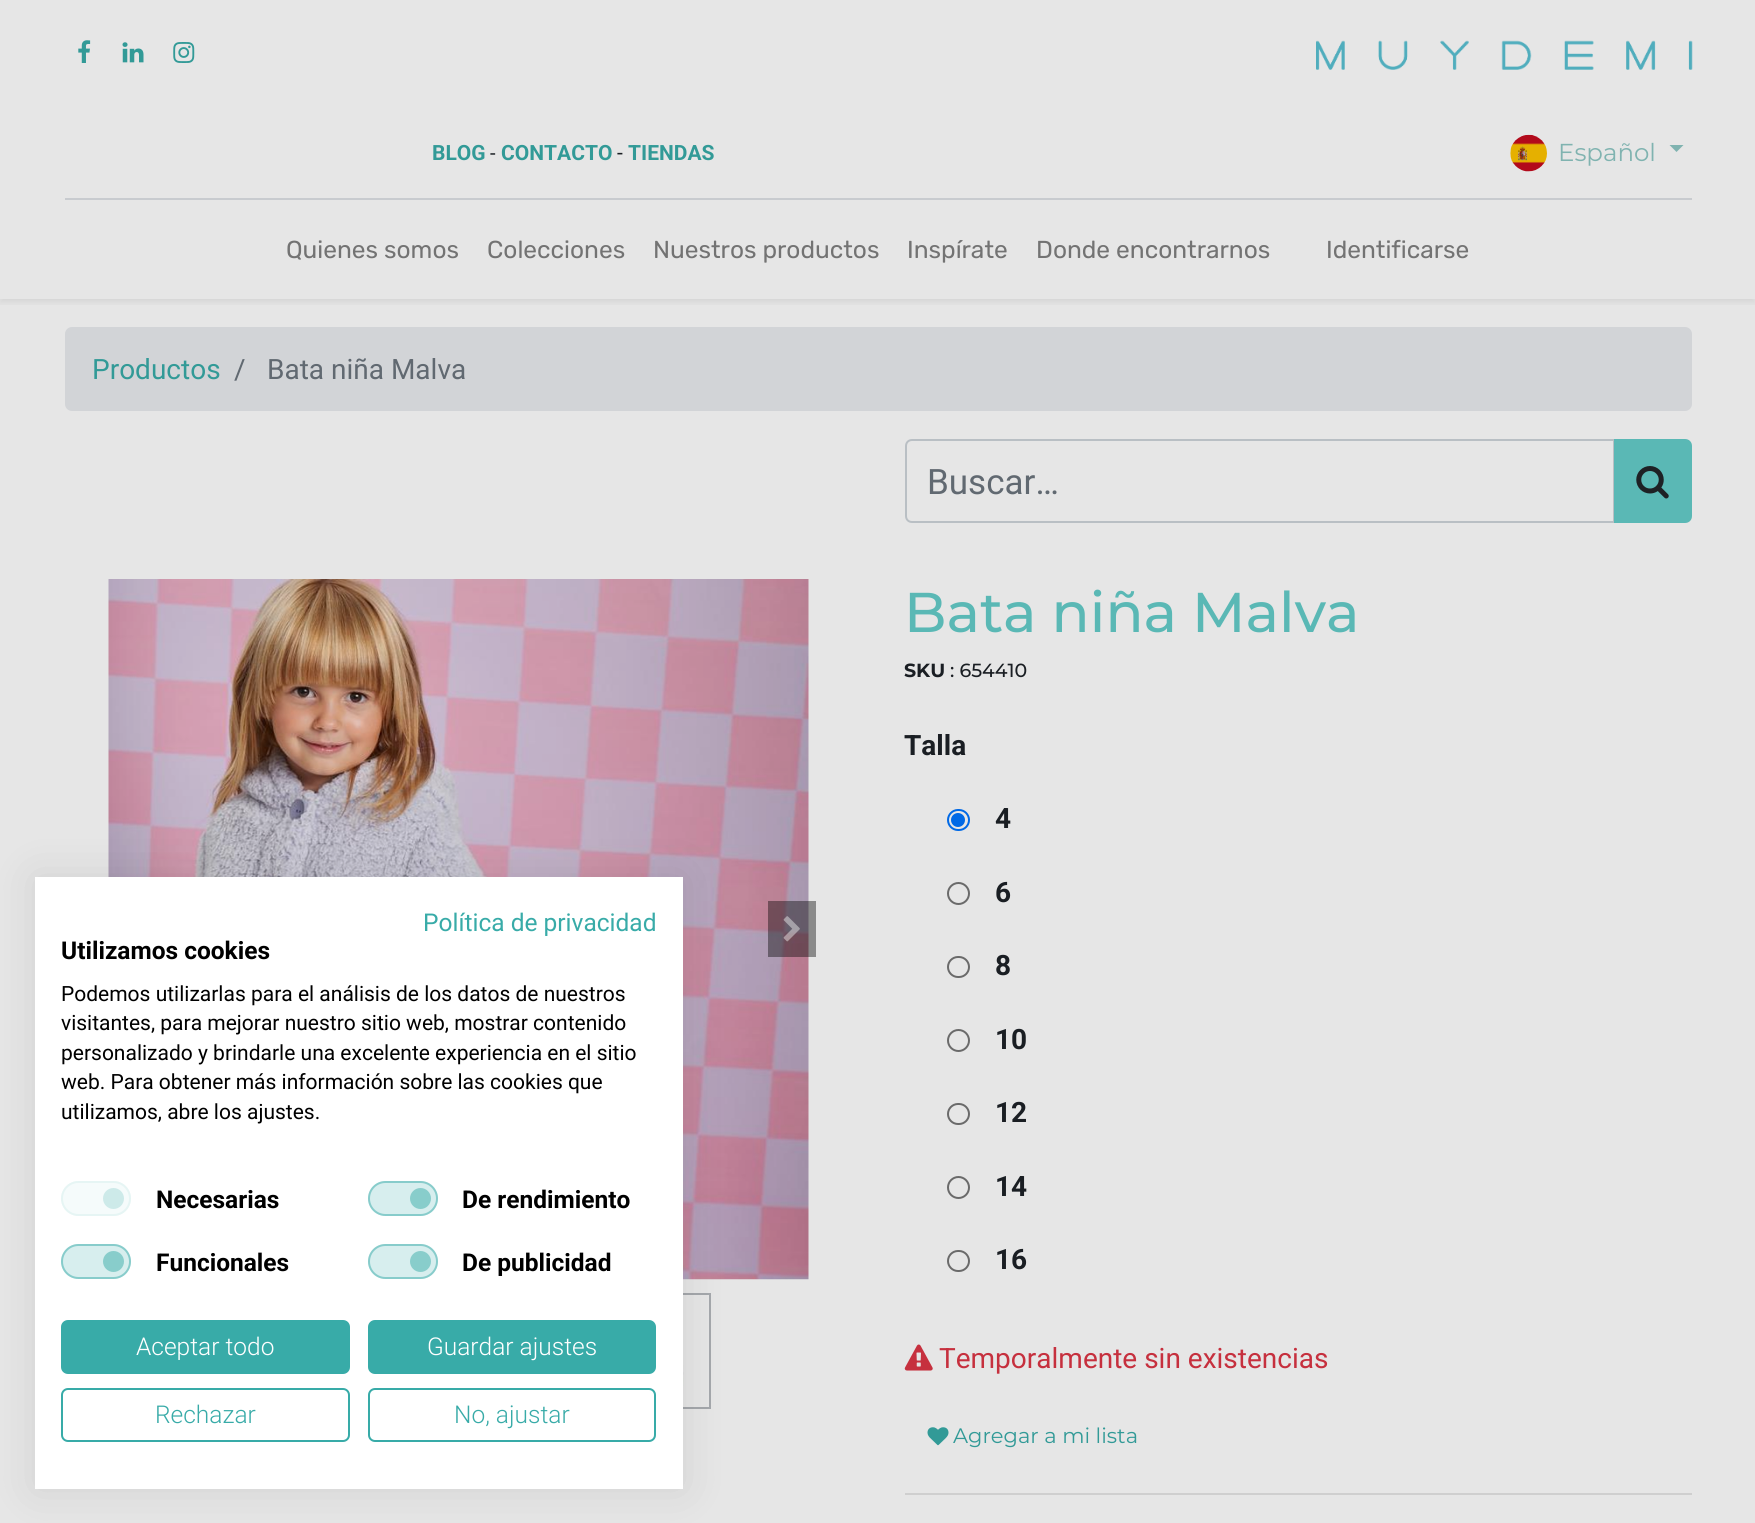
#include <cairo.h>
#include <math.h>
#include <stddef.h>

static cairo_t *c;
static void C(unsigned color){cairo_set_source_rgb(c, (color >> 16) / 255.0, (color >> 8 & 255) / 255.0, (color & 255) / 255.0);}
static void F(const char *family, double size, int italic, int bold){cairo_select_font_face(c, family, italic ? CAIRO_FONT_SLANT_ITALIC : CAIRO_FONT_SLANT_NORMAL,bold ? CAIRO_FONT_WEIGHT_BOLD : CAIRO_FONT_WEIGHT_NORMAL);cairo_set_font_size(c, size);}
static void T(double x, double y, const char *s){cairo_move_to(c, x, y);cairo_show_text(c, s);}
static void R(double x, double y, double w, double h){cairo_rectangle(c, x, y, w, h);cairo_fill(c);}
static void Q(double x, double y, double w, double h, double r){cairo_new_sub_path(c);cairo_arc(c, x + w - r, y + h - r, r, 0, M_PI / 2);cairo_arc(c, x + r, y + h - r, r, M_PI / 2, M_PI);cairo_arc(c, x + r, y + r, r, M_PI, 1.5 * M_PI);cairo_arc(c, x + w - r, y + r, r, 1.5 * M_PI, 2 * M_PI);cairo_close_path(c);}
static void S(double x, double y, double w, double h, double r, double blur, double alpha){cairo_push_group_with_content(c, CAIRO_CONTENT_ALPHA);cairo_set_operator(c, CAIRO_OPERATOR_SOURCE);for (int i = 15; i >= -15 && fmin(w, h) + blur * i / 3 > 0; i -= 2) {double e = blur * i / 6;cairo_set_source_rgba(c, 0, 0, 0, alpha * erfc((i - 1) / 8.5) / 2);Q(x - e, y - e, w + 2 * e, h + 2 * e, fmax(0, fmin(r + e + blur * .6, fmin(w, h) / 2 + e)));cairo_fill(c);}cairo_pattern_t *soft = cairo_pop_group(c);cairo_mask(c, soft);cairo_pattern_destroy(soft);}
static void I(const char *path, double x, double y, double w, double h){cairo_surface_t *image = cairo_image_surface_create_from_png(path);cairo_save(c);cairo_set_source_surface(c, image, x, y);cairo_rectangle(c, x, y, w, h);cairo_fill(c);cairo_restore(c);cairo_surface_destroy(image);}
int main(void) {
cairo_surface_t *surface = cairo_image_surface_create(CAIRO_FORMAT_RGB24, 1755, 1523);
c = cairo_create(surface);
cairo_font_options_t *options = cairo_font_options_create();
cairo_font_options_set_hint_metrics(options, CAIRO_HINT_METRICS_OFF);
cairo_font_options_set_hint_style(options, CAIRO_HINT_STYLE_NONE);
cairo_set_font_options(c, options);
cairo_set_miter_limit(c, 4);
C(0xe6e6e6);
cairo_paint(c);
cairo_save(c);
cairo_rectangle(c,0,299,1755,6);
cairo_clip(c);
C(0x000000);
S(0,4,1755,299,0,3.5,.07);
cairo_restore(c);
I("1.png",78,40,13,23);
I("2.png",122,42,22,21);
I("3.png",173,42,22,21);
I("4.png",1316,40,377,30);
F("Roboto",21,0,1);
C(0x329a97);
T(432,160,"BLOG");
F("Roboto",20,0,0);
C(0x1a1e23);
T(490,160,"-");
F("Roboto",21,0,1);
C(0x329a97);
T(501,160,"CONTACTO");
F("Roboto",21,0,0);
C(0x1a1e23);
T(617,160,"-");
F("Roboto",21,0,1);
C(0x329a97);
T(628,160,"TIENDAS");
I("5.png",1510,134,37,38);
F("Montserrat",24.5,0,0);
C(0x80b3b0);
T(1558,161,"Español");
cairo_new_path(c);
cairo_move_to(c,1669.5,145);
cairo_line_to(c,1683.5,145);
cairo_line_to(c,1676.5,152);
cairo_close_path(c);
cairo_fill(c);
C(0xc8cbcf);
R(65,198,1627,2);
F("Rubik",24.5,0,0);
C(0x737373);
T(286,258,"Quienes somos");
T(487,258,"Colecciones");
T(653,258,"Nuestros productos");
T(907,258,"Inspírate");
T(1036,258,"Donde encontrarnos");
T(1326,258,"Identificarse");
C(0xd2d4d7);
Q(65,327,1627,84,7);
cairo_fill(c);
F("Roboto",28,0,0);
C(0x329a97);
T(92,379,"Productos");
C(0x616971);
T(234,379,"/");
T(267,379,"Bata niña Malva");
cairo_new_path(c);
cairo_move_to(c,912,440);
cairo_line_to(c,1614,440);
cairo_line_to(c,1614,522);
cairo_line_to(c,912,522);
cairo_curve_to(c,908.5,522,906,519.5,906,516);
cairo_line_to(c,906,446);
cairo_curve_to(c,906,442.5,908.5,440,912,440);
cairo_close_path(c);
C(0xb9bfc4);
cairo_stroke(c);
F("Roboto",35,0,0);
C(0x616971);
T(927,494,"Buscar…");
C(0x5ab8b5);
cairo_new_path(c);
cairo_move_to(c,1615,440);
cairo_line_to(c,1685,440);
cairo_curve_to(c,1688.5,440,1691,442.5,1691,446);
cairo_line_to(c,1691,516);
cairo_curve_to(c,1691,519.5,1688.5,522,1685,522);
cairo_line_to(c,1615,522);
cairo_close_path(c);
cairo_fill_preserve(c);
cairo_stroke(c);
I("6.png",1636,466,33,33);
I("7.png",108,579,701,701);
cairo_set_source_rgba(c,0,0,0,0.4);
R(768,901,48,56);
I("8.png",783,916,17,26);
cairo_rectangle(c,596,1294,114,114);
C(0xa4a7ab);
cairo_stroke(c);
I("9.png",683,1295,1,112);
F("Montserrat Medium",56,0,0);
C(0x5ab8b5);
T(904,632,"Bata niña Malva");
F("Montserrat",19,0,1);
C(0x1a1e23);
T(904,677,"SKU");
F("Montserrat Medium",19,0,0);
T(950,677,": 654410");
F("Roboto",28,0,1);
T(904,755,"Talla");
Q(948,810,21,20,10);
C(0x0069e6);
cairo_stroke(c);
cairo_arc(c,958,820,7,0,2 * M_PI);
cairo_fill(c);
C(0x1a1e23);
T(995,828,"4");
cairo_new_path(c);
cairo_arc(c,958.5,893.5,10.5,0,2 * M_PI);
C(0x6a6a6a);
cairo_stroke(c);
C(0x1a1e23);
T(995,902,"6");
Q(948,957,21,20,10);
C(0x6a6a6a);
cairo_stroke(c);
C(0x1a1e23);
T(995,975,"8");
cairo_new_path(c);
cairo_arc(c,958.5,1040.5,10.5,0,2 * M_PI);
C(0x6a6a6a);
cairo_stroke(c);
C(0x1a1e23);
T(995,1049,"10");
Q(948,1104,21,20,10);
C(0x6a6a6a);
cairo_stroke(c);
C(0x1a1e23);
T(995,1122,"12");
cairo_new_path(c);
cairo_arc(c,958.5,1187.5,10.5,0,2 * M_PI);
C(0x6a6a6a);
cairo_stroke(c);
C(0x1a1e23);
T(995,1196,"14");
Q(948,1251,21,20,10);
C(0x6a6a6a);
cairo_stroke(c);
C(0x1a1e23);
T(995,1269,"16");
I("10.png",904,1344,29,27);
F("Roboto",28,0,0);
C(0xc6303e);
T(939,1368,"Temporalmente sin existencias");
I("11.png",927,1427,22,19);
F("Montserrat",21,0,0);
C(0x329a97);
T(953,1443,"Agregar a mi lista");
C(0xcfcfcf);
R(905,1493,787,2);
C(0x000000);
S(35,877,648,612,0,21,.1);
C(0xffffff);
R(35,877,648,612);
F("Roboto",24.5,0,0);
C(0x38aba8);
T(423,931,"Política de privacidad");
F("Roboto",24.5,0,1);
C(0x000000);
T(61,959,"Utilizamos cookies");
F("Roboto",21,0,0);
T(61,1001,"Podemos utilizarlas para el análisis de los datos de nuestros");
T(61,1030,"visitantes, para mejorar nuestro sitio web, mostrar contenido");
T(61,1060,"personalizado y brindarle una excelente experiencia en el sitio");
T(61,1089,"web. Para obtener más información sobre las cookies que");
T(61,1119,"utilizamos, abre los ajustes.");
C(0xf5fbfb);
Q(61,1181,70,35,17.5);
cairo_fill(c);
C(0xcdeae9);
cairo_arc(c,113.5,1198.5,10.5,0,2 * M_PI);
cairo_fill(c);
Q(62,1182,68,33,16.5);
C(0xe6f5f4);
cairo_stroke(c);
F("Roboto",24.5,0,1);
C(0x000000);
T(156,1208,"Necesarias");
C(0xd7eeee);
Q(368,1181,70,35,17.5);
cairo_fill(c);
C(0x88cdcb);
cairo_arc(c,420.5,1198.5,10.5,0,2 * M_PI);
cairo_fill(c);
Q(369,1182,68,33,16.5);
cairo_set_source_rgba(c,0.22,0.671,0.659,0.5);
cairo_stroke(c);
C(0x000000);
T(462,1208,"De rendimiento");
C(0xd7eeee);
Q(61,1244,70,35,17.5);
cairo_fill(c);
C(0x88cdcb);
cairo_arc(c,113.5,1261.5,10.5,0,2 * M_PI);
cairo_fill(c);
Q(62,1245,68,33,16.5);
cairo_set_source_rgba(c,0.22,0.671,0.659,0.5);
cairo_stroke(c);
C(0x000000);
T(156,1271,"Funcionales");
C(0xd7eeee);
Q(368,1244,70,35,17.5);
cairo_fill(c);
C(0x88cdcb);
cairo_arc(c,420.5,1261.5,10.5,0,2 * M_PI);
cairo_fill(c);
Q(369,1245,68,33,16.5);
cairo_set_source_rgba(c,0.22,0.671,0.659,0.5);
cairo_stroke(c);
C(0x000000);
T(462,1271,"De publicidad");
C(0x38aba8);
Q(62,1321,287,52,6);
cairo_fill_preserve(c);
cairo_stroke(c);
F("Roboto Light",24.5,0,0);
C(0xffffff);
T(136,1355,"Aceptar todo");
C(0x38aba8);
Q(369,1321,286,52,6);
cairo_fill_preserve(c);
cairo_stroke(c);
C(0xffffff);
T(427,1355,"Guardar ajustes");
Q(62,1389,287,52,6);
C(0x38aba8);
cairo_stroke(c);
T(155,1423,"Rechazar");
Q(369,1389,286,52,6);
cairo_stroke(c);
T(454,1423,"No, ajustar");
cairo_surface_write_to_png(surface, "o.png");
cairo_font_options_destroy(options);
cairo_destroy(c);
cairo_surface_destroy(surface);
return 0;
}
